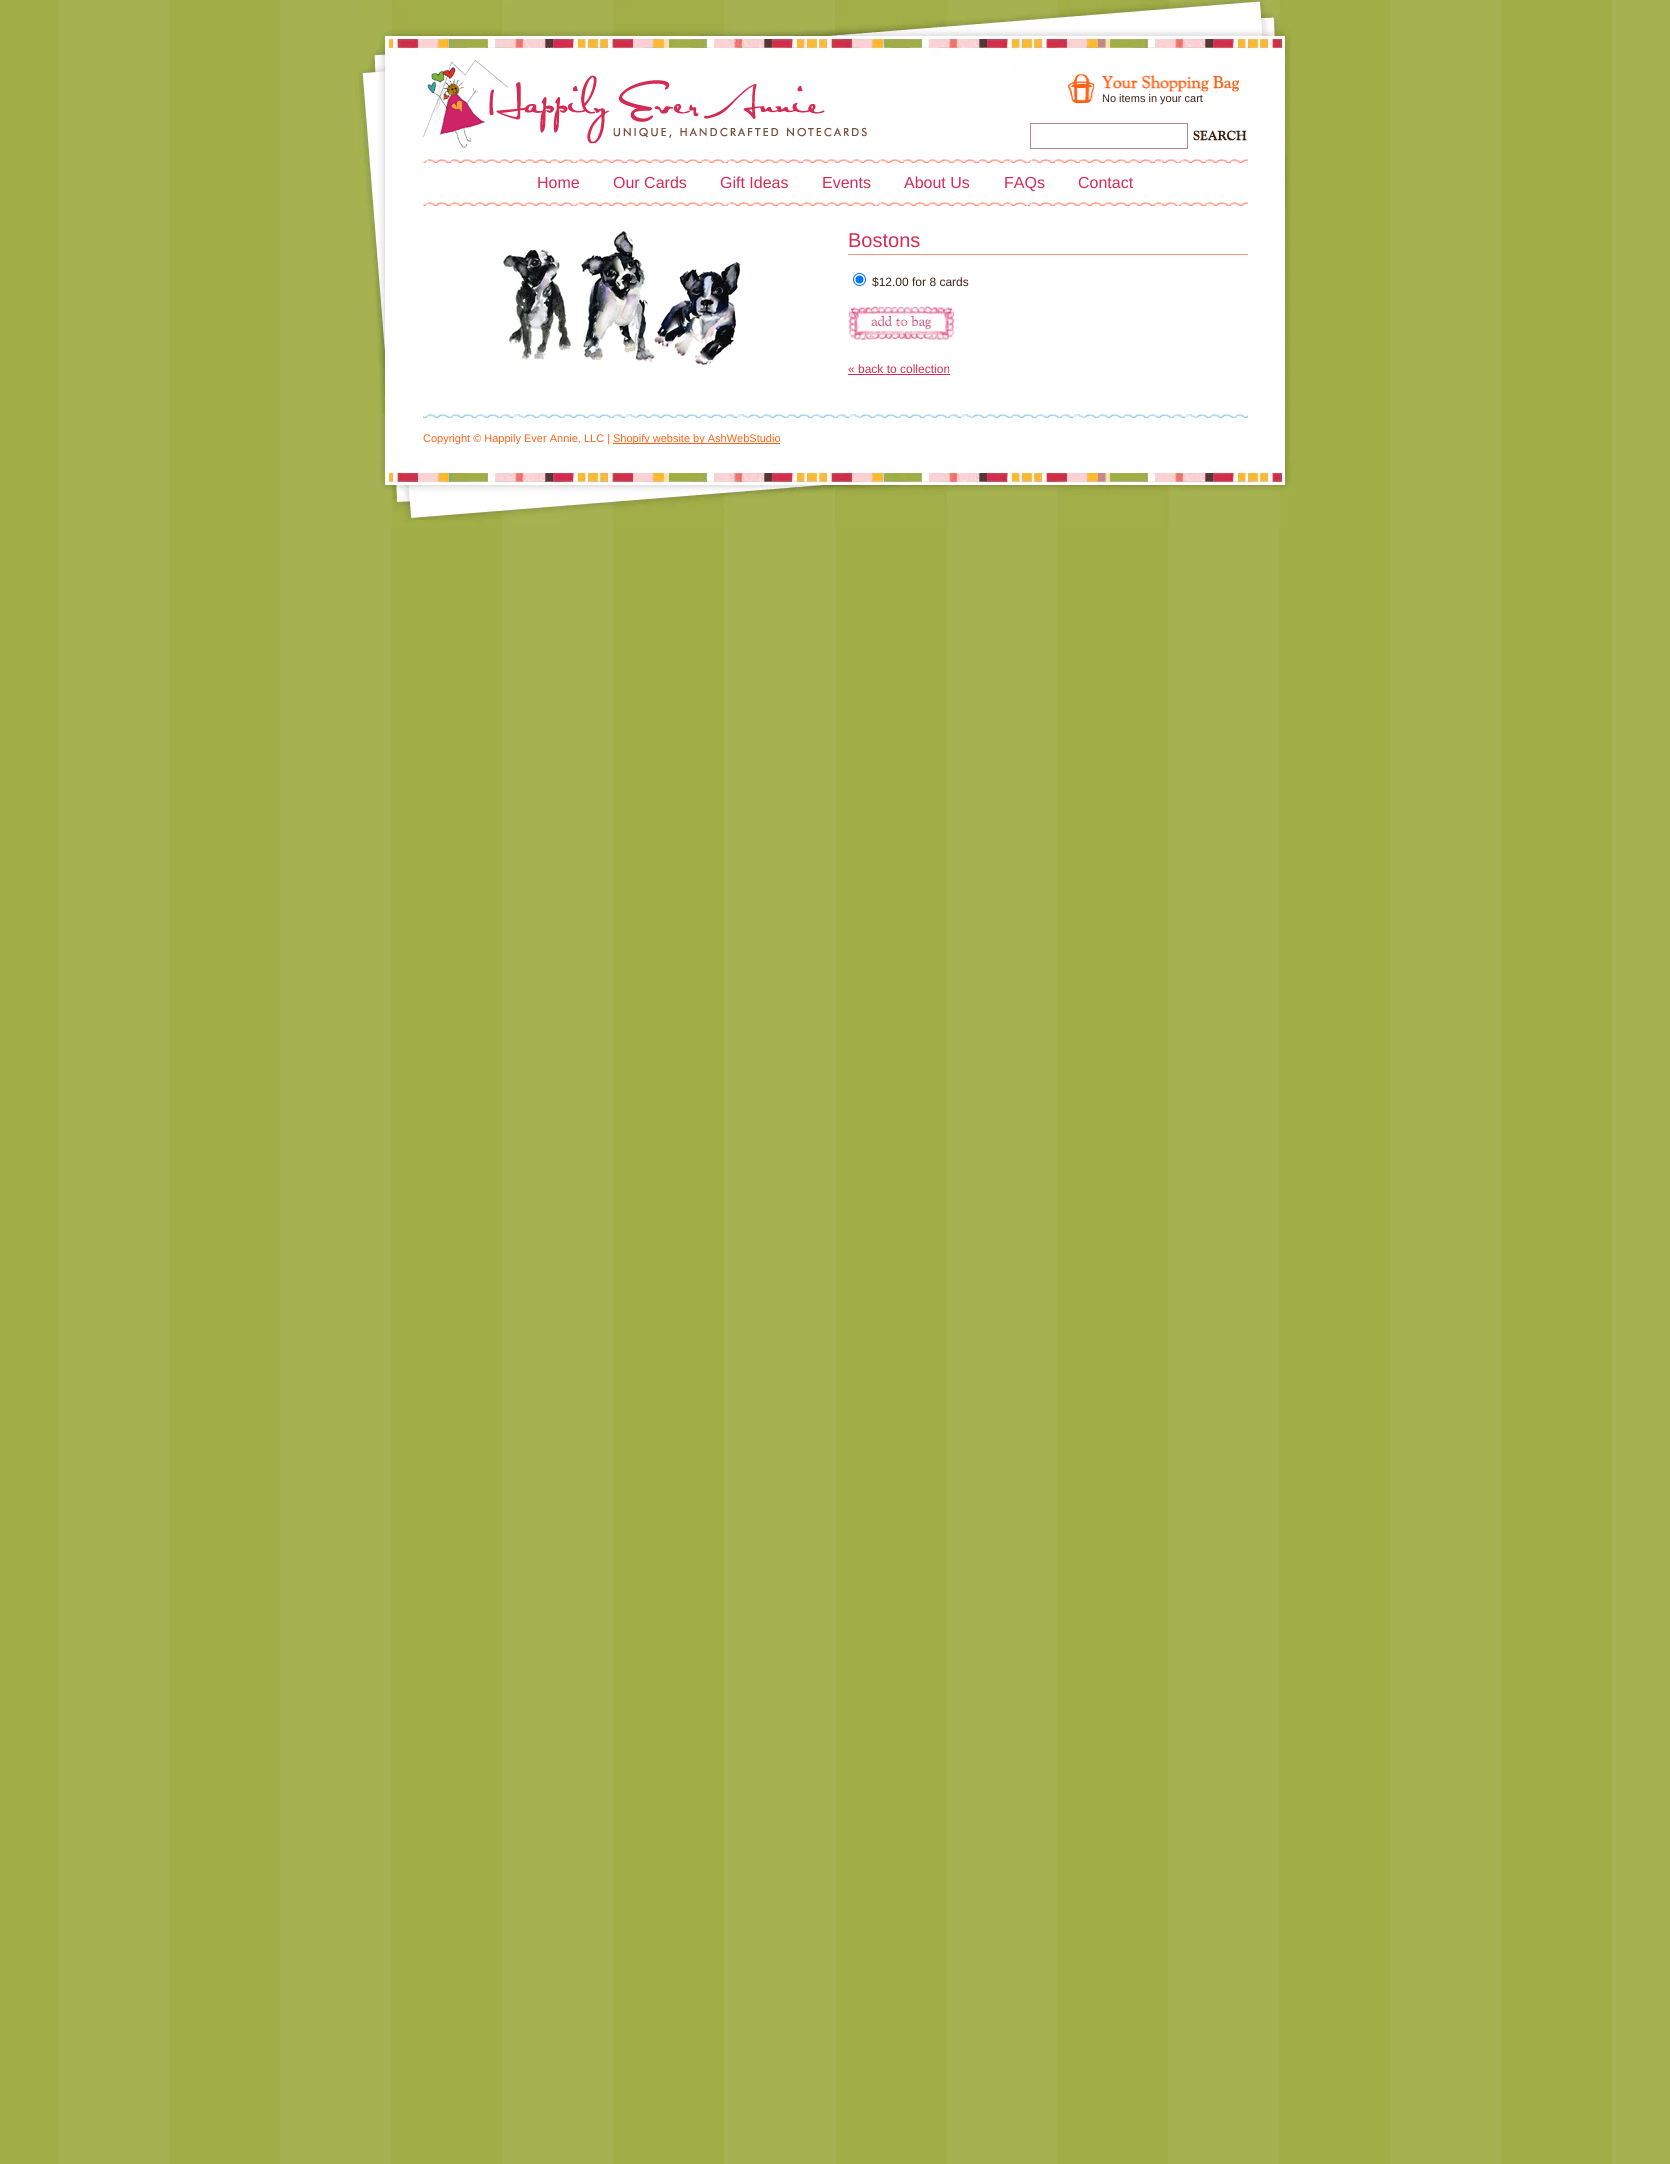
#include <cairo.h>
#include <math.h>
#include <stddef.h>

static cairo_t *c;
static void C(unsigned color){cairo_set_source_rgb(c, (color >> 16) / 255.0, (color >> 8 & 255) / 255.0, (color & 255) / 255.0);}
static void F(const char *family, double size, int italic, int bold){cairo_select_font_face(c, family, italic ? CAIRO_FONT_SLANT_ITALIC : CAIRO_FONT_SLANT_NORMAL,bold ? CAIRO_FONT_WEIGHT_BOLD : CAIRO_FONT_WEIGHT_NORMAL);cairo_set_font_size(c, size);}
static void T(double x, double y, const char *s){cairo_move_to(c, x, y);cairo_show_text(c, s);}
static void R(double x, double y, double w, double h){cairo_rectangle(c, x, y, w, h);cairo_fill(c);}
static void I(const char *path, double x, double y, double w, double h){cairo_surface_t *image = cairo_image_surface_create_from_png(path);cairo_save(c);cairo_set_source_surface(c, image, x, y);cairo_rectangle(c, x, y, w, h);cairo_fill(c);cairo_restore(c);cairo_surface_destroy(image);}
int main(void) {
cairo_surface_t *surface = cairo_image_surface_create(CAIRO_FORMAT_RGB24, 1670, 2164);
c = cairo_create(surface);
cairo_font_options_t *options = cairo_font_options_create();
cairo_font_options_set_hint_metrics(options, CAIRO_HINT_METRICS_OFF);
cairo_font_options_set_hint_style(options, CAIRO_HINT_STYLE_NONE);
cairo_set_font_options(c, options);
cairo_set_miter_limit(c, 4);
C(0xa6b251);
cairo_paint(c);
I("1.png",0,0,1612,2164);
I("2.png",380,414,910,45);
I("3.png",355,0,936,414);
I("4.png",379,459,912,68);
I("5.png",423,60,444,88);
I("6.png",1068,74,171,29);
F("Liberation Sans",11,0,0);
C(0x3d2216);
T(1102,102,"No items in your cart");
cairo_rectangle(c,1030.5,123.5,157,25);
C(0xb98598);
cairo_set_line_width(c,1);
cairo_stroke(c);
I("7.png",1193,130,54,11);
I("8.png",423,159,825,47);
F("Liberation Sans",16,0,0);
C(0xd42b54);
T(537,188,"Home");
T(613,188,"Our Cards");
T(720,188,"Gift Ideas");
T(822,188,"Events");
T(904,188,"About Us");
T(1004,188,"FAQs");
T(1078,188,"Contact");
I("9.png",503,231,240,136);
C(0xff917f);
R(848,254,400,1);
F("Liberation Sans",20,0,0);
C(0xd42b54);
T(848,247,"Bostons");
cairo_new_path(c);
cairo_arc(c,859.5,279.5,6,0,2 * M_PI);
C(0x0075ff);
cairo_stroke(c);
cairo_arc(c,859.5,279.5,4,0,2 * M_PI);
cairo_fill(c);
F("Liberation Sans",12,0,0);
C(0x3d2216);
T(872,286,"$12.00 for 8 cards");
I("10.png",848,306,107,34);
C(0xd42b54);
T(848,373,"« back to collection");
R(848,374,102,1);
I("11.png",423,414,825,4);
F("Liberation Sans",11,0,0);
C(0xfe6217);
T(423,442,"Copyright © Happily Ever Annie, LLC |");
R(613,443,167,1);
T(613,442,"Shopify website by AshWebStudio");
cairo_surface_write_to_png(surface, "o.png");
cairo_font_options_destroy(options);
cairo_destroy(c);
cairo_surface_destroy(surface);
return 0;
}
